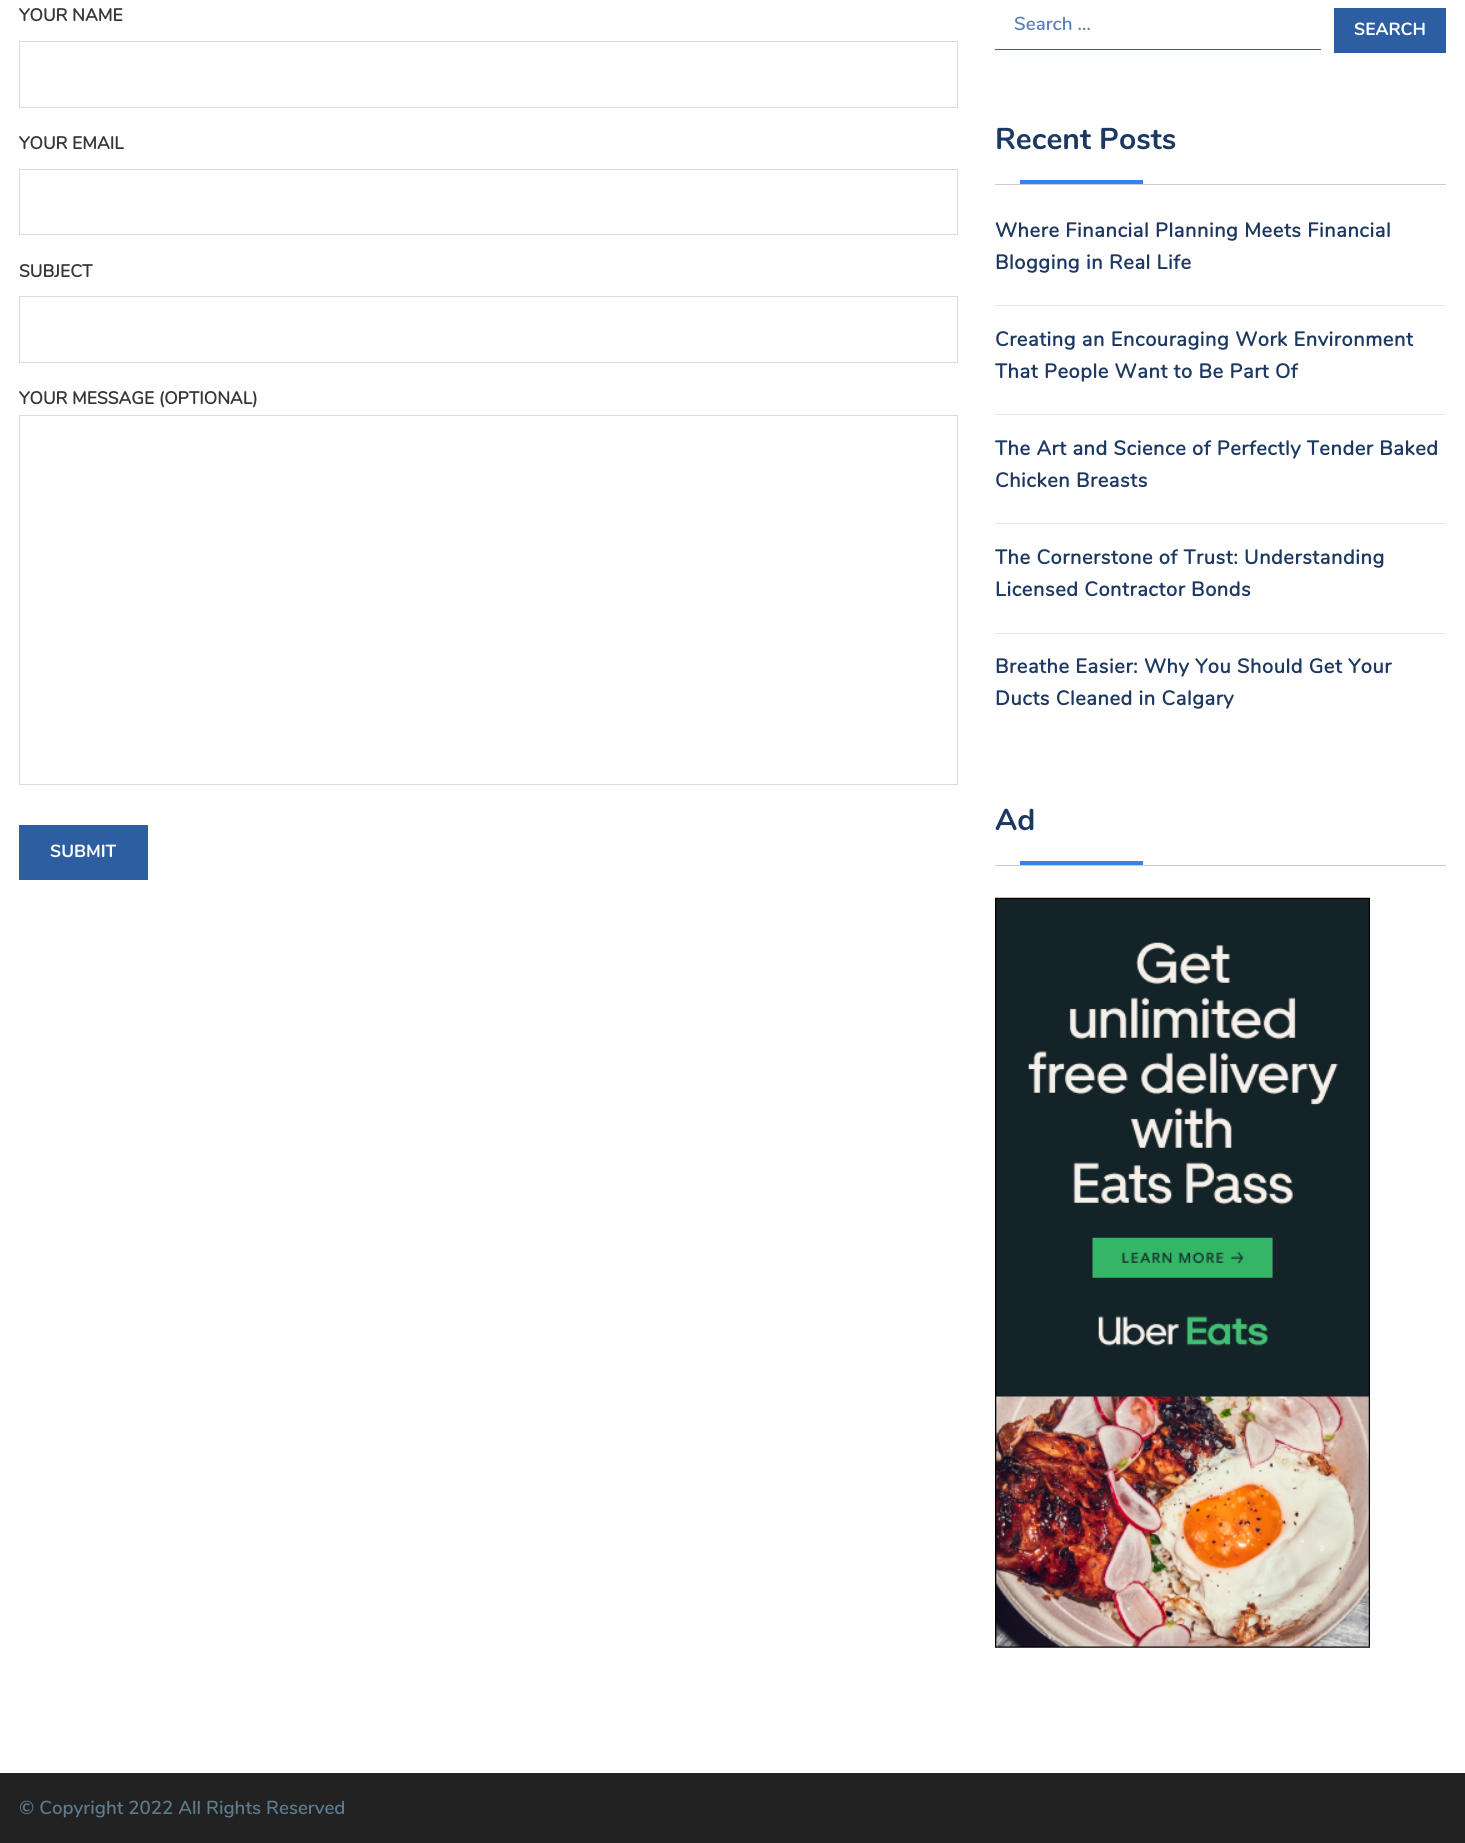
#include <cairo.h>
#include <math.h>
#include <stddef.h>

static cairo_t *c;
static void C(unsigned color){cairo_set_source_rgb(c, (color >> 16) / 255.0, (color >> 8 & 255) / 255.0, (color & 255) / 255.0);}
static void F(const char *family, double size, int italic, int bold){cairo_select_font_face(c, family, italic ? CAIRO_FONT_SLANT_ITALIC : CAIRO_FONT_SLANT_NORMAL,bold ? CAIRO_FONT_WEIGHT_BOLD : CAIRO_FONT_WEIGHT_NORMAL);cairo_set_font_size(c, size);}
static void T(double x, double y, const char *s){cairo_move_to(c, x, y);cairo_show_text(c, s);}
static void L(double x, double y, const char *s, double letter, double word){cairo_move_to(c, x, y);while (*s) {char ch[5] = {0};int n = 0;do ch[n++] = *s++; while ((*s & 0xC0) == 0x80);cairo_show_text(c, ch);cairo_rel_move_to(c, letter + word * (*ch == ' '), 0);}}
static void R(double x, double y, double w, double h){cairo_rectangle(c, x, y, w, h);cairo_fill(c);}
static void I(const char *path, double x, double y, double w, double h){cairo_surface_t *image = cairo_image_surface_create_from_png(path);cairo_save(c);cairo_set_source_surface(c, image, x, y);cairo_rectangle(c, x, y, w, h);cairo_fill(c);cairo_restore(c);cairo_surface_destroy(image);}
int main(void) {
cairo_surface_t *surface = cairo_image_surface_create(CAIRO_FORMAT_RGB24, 1465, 1843);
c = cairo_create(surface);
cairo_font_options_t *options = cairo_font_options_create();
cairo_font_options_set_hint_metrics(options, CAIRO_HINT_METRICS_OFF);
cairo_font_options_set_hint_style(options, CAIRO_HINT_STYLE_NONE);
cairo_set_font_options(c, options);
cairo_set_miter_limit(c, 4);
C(0xffffff);
cairo_paint(c);
F("Nunito",17.5,0,1);
C(0x353638);
T(19,21,"YOUR NAME");
cairo_rectangle(c,19.5,41.5,938,66);
C(0xdbdbdb);
cairo_set_line_width(c,1);
cairo_stroke(c);
C(0x353638);
T(19,149,"YOUR EMAIL");
cairo_rectangle(c,19.5,169.5,938,65);
C(0xdbdbdb);
cairo_stroke(c);
C(0x353638);
T(19,277,"SUBJECT");
cairo_rectangle(c,19.5,296.5,938,66);
C(0xdbdbdb);
cairo_stroke(c);
C(0x353638);
T(19,404,"YOUR MESSAGE (OPTIONAL)");
cairo_rectangle(c,19.5,415.5,938,369);
C(0xdbdbdb);
cairo_stroke(c);
C(0x2e5ea2);
R(19,825,129,55);
F("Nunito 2",17.5,0,1);
C(0xffffff);
T(50,857,"SUBMIT");
C(0x2e5ea2);
R(995,49,326,1);
F("Nunito SemiBold",18.75,0,0);
C(0x587eb5);
T(1014,30,"Search …");
C(0x2e5ea2);
R(1334,8,112,45);
F("Nunito 2",17.5,0,1);
C(0xffffff);
T(1354,35,"SEARCH");
C(0xcccccc);
R(995,184,451,1);
F("Nunito 2",30,0,1);
C(0x1d3962);
T(995,149,"Recent Posts");
C(0x3381f2);
R(1020,180,123,4);
C(0xe4e7eb);
R(995,305,451,1);
F("Nunito",20,0,1);
C(0x1d3962);
L(995,237,"Where Financial Planning Meets Financial",.6,0);
L(995,269,"Blogging in Real Life",.6,0);
C(0xe4e7eb);
R(995,414,451,1);
C(0x1d3962);
L(995,346,"Creating an Encouraging Work Environment",.6,0);
L(995,378,"That People Want to Be Part Of",.6,0);
C(0xe4e7eb);
R(995,523,451,1);
C(0x1d3962);
L(995,455,"The Art and Science of Perfectly Tender Baked",.6,0);
L(995,487,"Chicken Breasts",.6,0);
C(0xe4e7eb);
R(995,633,451,1);
C(0x1d3962);
L(995,564,"The Cornerstone of Trust: Understanding",.6,0);
L(995,596,"Licensed Contractor Bonds",.6,0);
L(995,673,"Breathe Easier: Why You Should Get Your",.6,0);
L(995,705,"Ducts Cleaned in Calgary",.6,0);
C(0xcccccc);
R(995,865,451,1);
F("Nunito 2",30,0,1);
C(0x1d3962);
T(995,830,"Ad");
C(0x3381f2);
R(1020,861,123,4);
I("1.png",995,897,375,751);
C(0x222222);
R(0,1773,1465,70);
F("Nunito SemiBold",18.75,0,0);
C(0x5e7a8d);
T(19,1814,"© Copyright 2022 All Rights Reserved");
cairo_surface_write_to_png(surface, "o.png");
cairo_font_options_destroy(options);
cairo_destroy(c);
cairo_surface_destroy(surface);
return 0;
}
